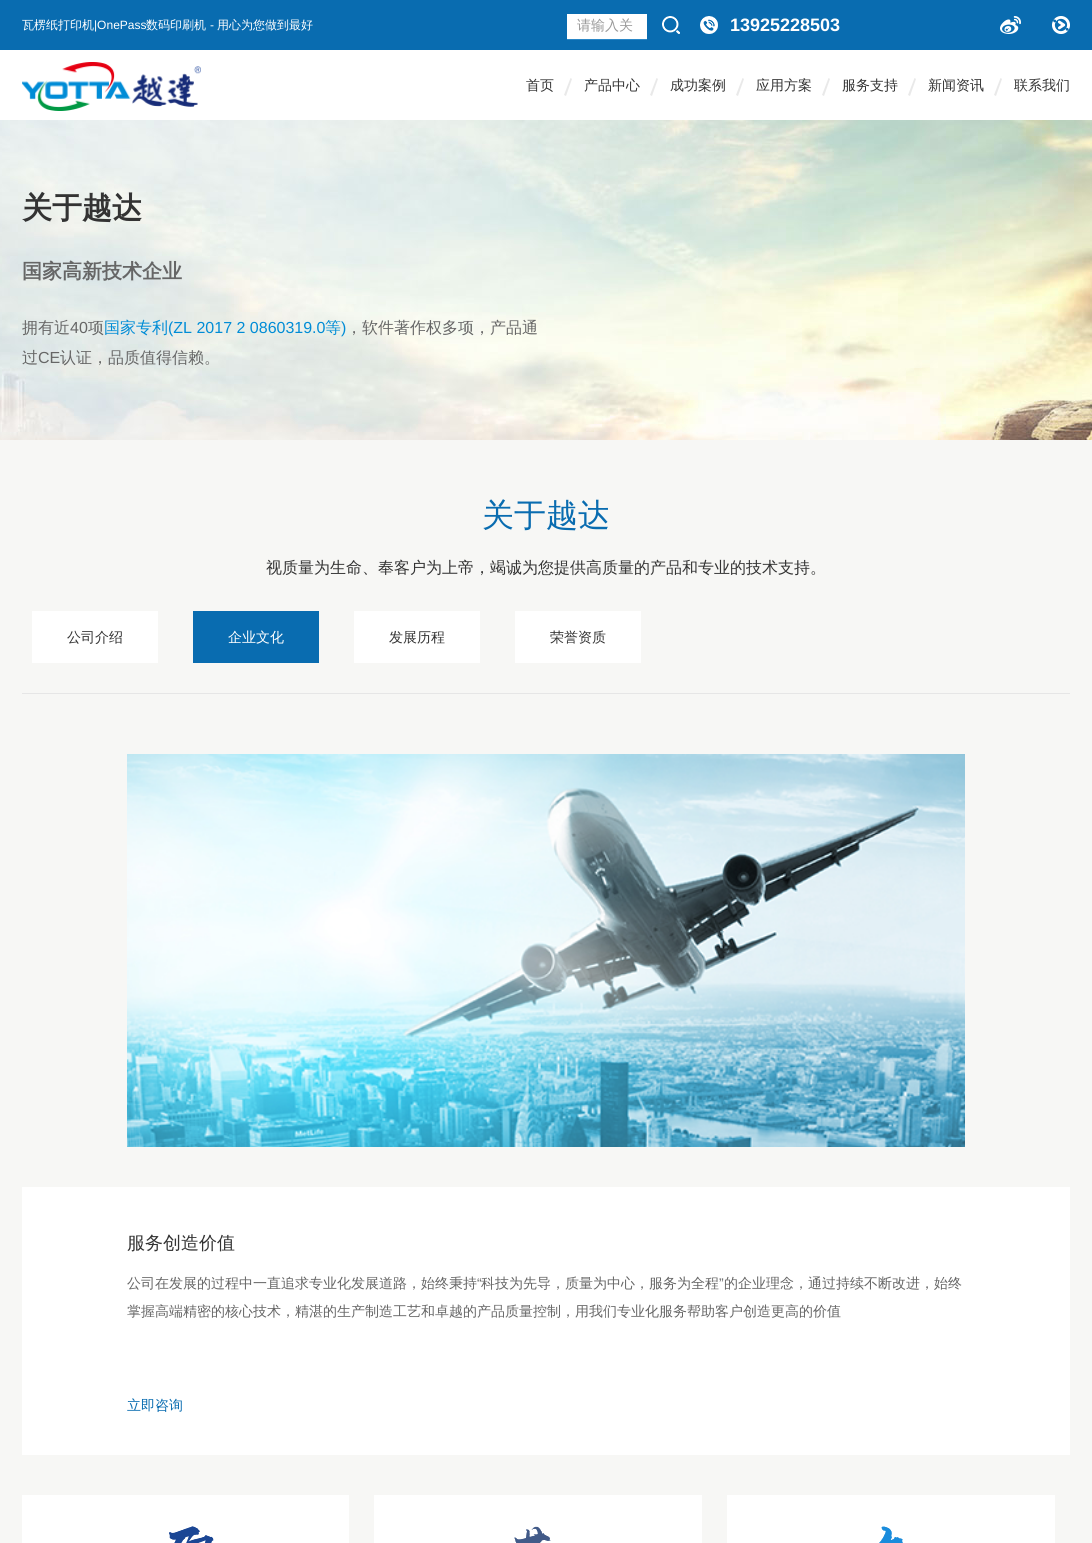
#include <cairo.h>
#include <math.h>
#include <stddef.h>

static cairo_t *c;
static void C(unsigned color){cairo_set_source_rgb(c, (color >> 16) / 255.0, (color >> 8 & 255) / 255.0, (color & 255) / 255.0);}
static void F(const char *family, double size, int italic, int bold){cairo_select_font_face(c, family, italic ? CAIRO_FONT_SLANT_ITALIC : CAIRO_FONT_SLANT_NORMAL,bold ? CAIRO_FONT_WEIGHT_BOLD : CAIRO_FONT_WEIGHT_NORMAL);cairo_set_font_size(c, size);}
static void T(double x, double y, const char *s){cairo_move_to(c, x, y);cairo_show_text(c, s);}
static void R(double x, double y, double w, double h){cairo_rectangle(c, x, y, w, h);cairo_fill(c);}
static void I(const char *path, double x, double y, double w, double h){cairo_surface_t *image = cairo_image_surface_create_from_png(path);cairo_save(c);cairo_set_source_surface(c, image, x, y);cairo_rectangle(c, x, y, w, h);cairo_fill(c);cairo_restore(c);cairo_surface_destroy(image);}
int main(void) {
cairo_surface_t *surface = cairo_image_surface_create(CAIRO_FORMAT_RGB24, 1092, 1543);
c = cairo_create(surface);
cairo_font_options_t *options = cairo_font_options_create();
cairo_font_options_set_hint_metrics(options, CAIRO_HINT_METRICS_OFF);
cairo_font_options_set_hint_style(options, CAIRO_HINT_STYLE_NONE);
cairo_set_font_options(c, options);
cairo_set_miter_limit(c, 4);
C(0xf7f7f5);
cairo_paint(c);
C(0x096cb0);
R(0,0,1092,50);
F("WenQuanYi Zen Hei Medium",12,0,0);
C(0xffffff);
T(22,29,"瓦楞纸打印机");
F("Liberation Sans",12,0,0);
T(94,29,"|OnePass");
F("WenQuanYi Zen Hei Medium",12,0,0);
T(146,29,"数码印刷机");
F("Liberation Sans",12,0,0);
T(210,29,"-");
F("WenQuanYi Zen Hei Medium",12,0,0);
T(217,29,"用心为您做到最好");
R(567,14,80,25);
C(0x2b88c8);
R(567,39,80,1);
F("WenQuanYi Zen Hei Medium",14,0,0);
C(0x999999);
T(577,30,"请输入关");
I("1.png",662,16,18,18);
I("2.png",700,16,18,18);
F("Liberation Sans",18,0,1);
C(0xffffff);
T(730,31,"13925228503");
I("3.png",1000,16,21,18);
I("4.png",1052,16,18,18);
R(0,50,1092,70);
I("5.png",22,62,179,49);
F("WenQuanYi Zen Hei Medium",14,0,0);
C(0x333333);
T(526,90,"首页");
C(0xe9e9e9);
cairo_new_path(c);
cairo_move_to(c,570.5,78);
cairo_line_to(c,572,79);
cairo_line_to(c,566,96);
cairo_line_to(c,564,95);
cairo_close_path(c);
cairo_fill(c);
C(0x333333);
T(584,90,"产品中心");
C(0xe9e9e9);
cairo_new_path(c);
cairo_move_to(c,656.5,78);
cairo_line_to(c,658,79);
cairo_line_to(c,652,96);
cairo_line_to(c,650,95);
cairo_close_path(c);
cairo_fill(c);
C(0x333333);
T(670,90,"成功案例");
C(0xe9e9e9);
cairo_new_path(c);
cairo_move_to(c,742.5,78);
cairo_line_to(c,744,79);
cairo_line_to(c,738,96);
cairo_line_to(c,736,95);
cairo_close_path(c);
cairo_fill(c);
C(0x333333);
T(756,90,"应用方案");
C(0xe9e9e9);
cairo_new_path(c);
cairo_move_to(c,828.5,78);
cairo_line_to(c,830,79);
cairo_line_to(c,824,96);
cairo_line_to(c,822,95);
cairo_close_path(c);
cairo_fill(c);
C(0x333333);
T(842,90,"服务支持");
C(0xe9e9e9);
cairo_new_path(c);
cairo_move_to(c,914.5,78);
cairo_line_to(c,916,79);
cairo_line_to(c,910,96);
cairo_line_to(c,908,95);
cairo_close_path(c);
cairo_fill(c);
C(0x333333);
T(928,90,"新闻资讯");
C(0xe9e9e9);
cairo_new_path(c);
cairo_move_to(c,1000.5,78);
cairo_line_to(c,1002,79);
cairo_line_to(c,996,96);
cairo_line_to(c,994,95);
cairo_close_path(c);
cairo_fill(c);
C(0x333333);
T(1014,90,"联系我们");
I("6.png",0,120,1092,320);
F("WenQuanYi Zen Hei",30,0,1);
T(22,218,"关于越达");
F("WenQuanYi Zen Hei",20,0,1);
C(0x666666);
T(22,278,"国家高新技术企业");
F("WenQuanYi Zen Hei Medium",16,0,0);
T(22,333,"拥有近");
F("Liberation Sans",16,0,0);
T(70,333,"40");
F("WenQuanYi Zen Hei Medium",16,0,0);
T(88,333,"项");
C(0x008cd6);
T(104,333,"国家专利");
F("Liberation Sans",16,0,0);
T(168,333,"(ZL 2017 2 0860319.0");
F("WenQuanYi Zen Hei Medium",16,0,0);
T(325,333,"等");
F("Liberation Sans",16,0,0);
T(341,333,")");
F("WenQuanYi Zen Hei Medium",16,0,0);
C(0x666666);
T(346,333,"，软件著作权多项，产品通");
T(22,363,"过");
F("Liberation Sans",16,0,0);
T(38,363,"CE");
F("WenQuanYi Zen Hei Medium",16,0,0);
T(60,363,"认证，品质值得信赖。");
F("WenQuanYi Zen Hei Medium",32,0,0);
C(0x096cb0);
T(482,526,"关于越达");
F("WenQuanYi Zen Hei Medium",16,0,0);
C(0x333333);
T(266,573,"视质量为生命、奉客户为上帝，竭诚为您提供高质量的产品和专业的技术支持。");
C(0xe6e6e6);
R(22,693,1048,1);
C(0xffffff);
R(32,611,126,52);
F("WenQuanYi Zen Hei Medium",14,0,0);
C(0x333333);
T(67,642,"公司介绍");
C(0x096cb0);
R(193,611,126,52);
C(0xffffff);
T(228,642,"企业文化");
R(354,611,126,52);
C(0x333333);
T(389,642,"发展历程");
C(0xffffff);
R(515,611,126,52);
C(0x333333);
T(550,642,"荣誉资质");
I("7.png",127,754,838,393);
C(0xffffff);
R(22,1187,1048,268);
F("WenQuanYi Zen Hei Medium",18,0,0);
C(0x333333);
T(127,1249,"服务创造价值");
F("WenQuanYi Zen Hei Medium",14,0,0);
C(0x666666);
T(127,1288,"公司在发展的过程中一直追求专业化发展道路，始终秉持");
F("Liberation Sans",14,0,0);
T(477,1288,"“");
F("WenQuanYi Zen Hei Medium",14,0,0);
T(481,1288,"科技为先导，质量为中心，服务为全程");
F("Liberation Sans",14,0,0);
T(719,1288,"”");
F("WenQuanYi Zen Hei Medium",14,0,0);
T(724,1288,"的企业理念，通过持续不断改进，始终");
T(127,1316,"掌握高端精密的核心技术，精湛的生产制造工艺和卓越的产品质量控制，用我们专业化服务帮助客户创造更高的价值");
C(0x096cb0);
T(127,1410,"立即咨询");
C(0xffffff);
R(22,1495,327,48);
I("8.png",169,1526,45,17);
R(374,1495,328,48);
I("9.png",514,1526,37,17);
R(727,1495,328,48);
I("10.png",879,1526,24,17);
cairo_surface_write_to_png(surface, "o.png");
cairo_font_options_destroy(options);
cairo_destroy(c);
cairo_surface_destroy(surface);
return 0;
}
